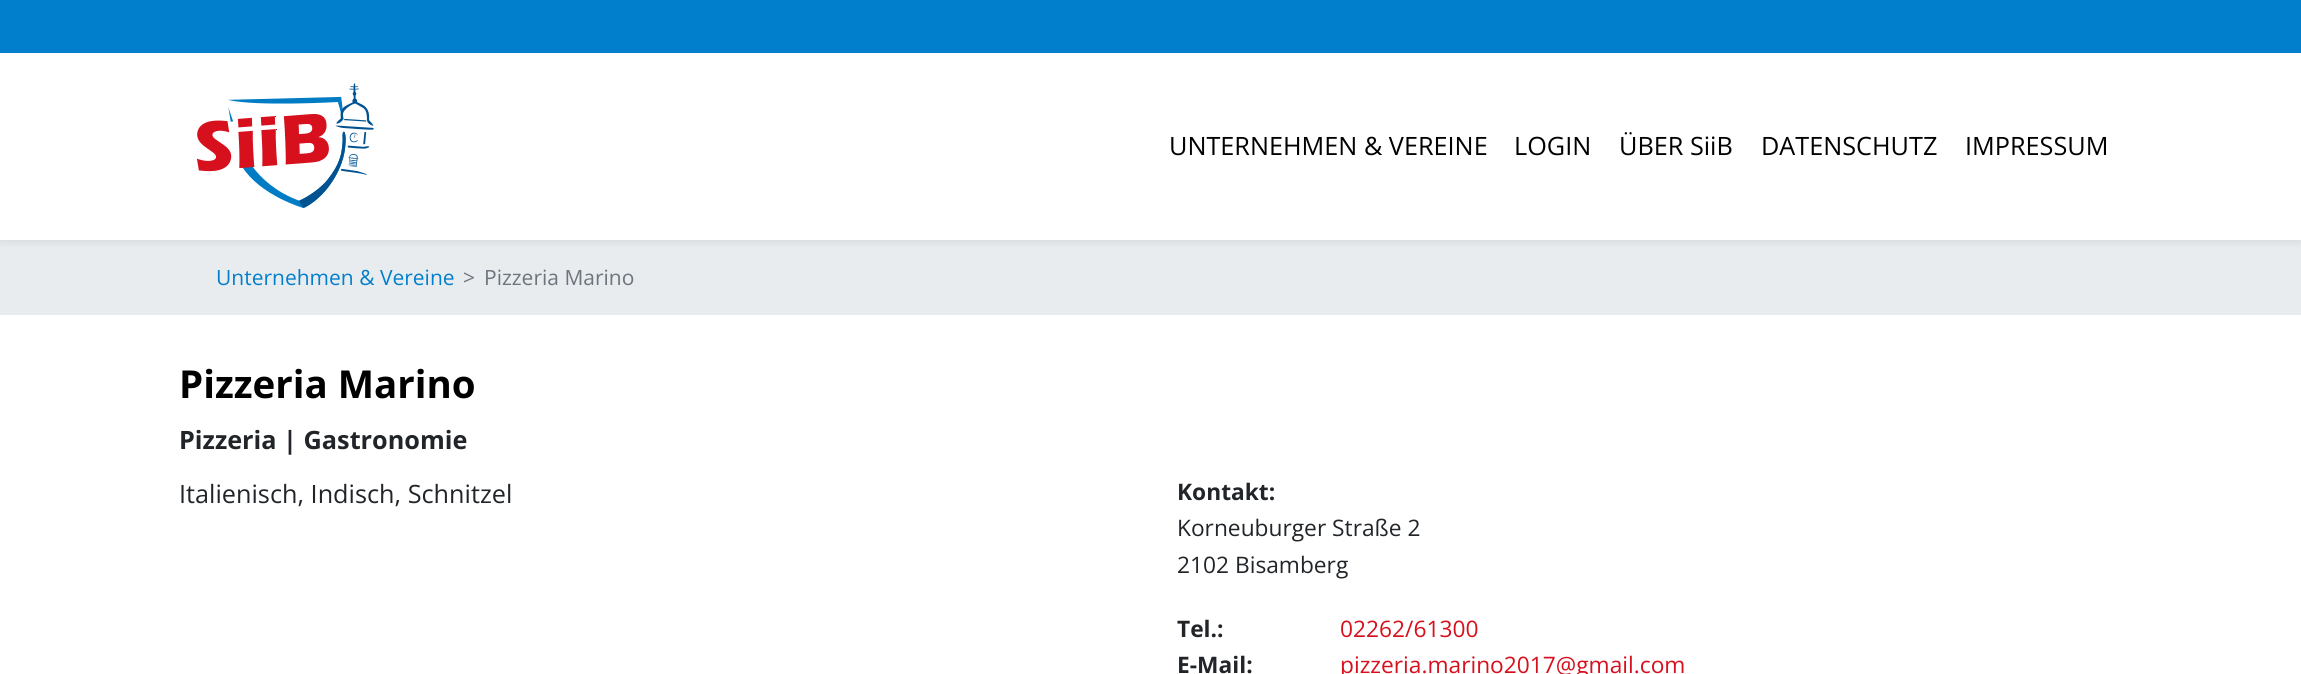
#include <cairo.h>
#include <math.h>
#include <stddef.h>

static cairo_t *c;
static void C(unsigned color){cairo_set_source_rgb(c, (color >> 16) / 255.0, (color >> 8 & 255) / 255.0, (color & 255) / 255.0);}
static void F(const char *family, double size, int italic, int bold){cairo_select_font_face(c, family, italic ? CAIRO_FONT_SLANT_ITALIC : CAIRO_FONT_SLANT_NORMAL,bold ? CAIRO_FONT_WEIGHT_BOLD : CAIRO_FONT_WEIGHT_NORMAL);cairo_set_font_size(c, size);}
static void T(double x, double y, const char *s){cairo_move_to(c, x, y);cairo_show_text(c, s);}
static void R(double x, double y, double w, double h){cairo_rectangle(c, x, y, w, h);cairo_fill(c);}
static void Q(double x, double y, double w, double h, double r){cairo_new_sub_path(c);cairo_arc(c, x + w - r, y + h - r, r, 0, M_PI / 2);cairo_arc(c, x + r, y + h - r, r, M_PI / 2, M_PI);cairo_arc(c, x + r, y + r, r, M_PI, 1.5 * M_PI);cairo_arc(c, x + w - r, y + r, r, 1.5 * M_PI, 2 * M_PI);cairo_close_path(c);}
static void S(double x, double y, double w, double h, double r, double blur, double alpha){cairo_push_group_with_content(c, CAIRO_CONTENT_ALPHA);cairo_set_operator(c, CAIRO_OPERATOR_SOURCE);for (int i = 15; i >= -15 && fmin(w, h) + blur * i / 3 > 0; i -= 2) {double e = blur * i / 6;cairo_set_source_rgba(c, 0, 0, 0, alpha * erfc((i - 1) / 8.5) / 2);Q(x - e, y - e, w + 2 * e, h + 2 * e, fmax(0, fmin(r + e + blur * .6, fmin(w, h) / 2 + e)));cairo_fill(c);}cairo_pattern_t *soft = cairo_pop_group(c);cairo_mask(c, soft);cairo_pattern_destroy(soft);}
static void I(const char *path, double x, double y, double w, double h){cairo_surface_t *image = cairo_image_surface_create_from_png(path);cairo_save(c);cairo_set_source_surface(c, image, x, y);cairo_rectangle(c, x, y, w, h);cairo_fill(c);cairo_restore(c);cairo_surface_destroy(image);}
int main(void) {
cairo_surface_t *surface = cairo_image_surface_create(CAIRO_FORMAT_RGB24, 2301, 674);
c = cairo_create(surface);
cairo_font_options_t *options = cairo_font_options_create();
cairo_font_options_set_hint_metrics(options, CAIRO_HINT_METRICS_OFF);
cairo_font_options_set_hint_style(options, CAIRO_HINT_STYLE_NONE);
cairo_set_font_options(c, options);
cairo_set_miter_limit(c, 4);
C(0xffffff);
cairo_paint(c);
C(0xe9ecef);
R(0,240,2301,75);
C(0x000000);
S(0,4,2301,239,0,3.5,.07);
C(0xffffff);
R(0,53,2301,187);
C(0x027fcc);
R(0,0,2301,53);
I("1.png",196,83,178,125);
F("Open Sans",25.25,0,0);
C(0x000000);
T(1169,155,"UNTERNEHMEN & VEREINE");
T(1514,155,"LOGIN");
T(1619,155,"ÜBER SiiB");
T(1761,155,"DATENSCHUTZ");
T(1965,155,"IMPRESSUM");
F("Open Sans",21,0,0);
C(0x027fcc);
T(216,285,"Unternehmen & Vereine");
C(0x6c757d);
T(463,285,">");
T(484,285,"Pizzeria Marino");
F("Open Sans",38.5,0,1);
C(0x000000);
T(179,398,"Pizzeria Marino");
F("Open Sans",25.25,0,1);
C(0x212529);
T(179,449,"Pizzeria | Gastronomie");
F("Open Sans",25.25,0,0);
T(179,503,"Italienisch, Indisch, Schnitzel");
F("Open Sans",22.75,0,1);
T(1177,500,"Kontakt:");
F("Open Sans",22.75,0,0);
T(1177,536,"Korneuburger Straße 2");
T(1177,573,"2102 Bisamberg");
F("Open Sans",22.75,0,1);
T(1177,637,"Tel.:");
F("Open Sans",22.75,0,0);
C(0xd6101c);
T(1340,637,"02262/61300");
F("Open Sans",22.75,0,1);
C(0x212529);
T(1177,673,"E-Mail:");
F("Open Sans",22.75,0,0);
C(0xd6101c);
T(1340,673,"pizzeria.marino2017@gmail.com");
cairo_surface_write_to_png(surface, "o.png");
cairo_font_options_destroy(options);
cairo_destroy(c);
cairo_surface_destroy(surface);
return 0;
}
